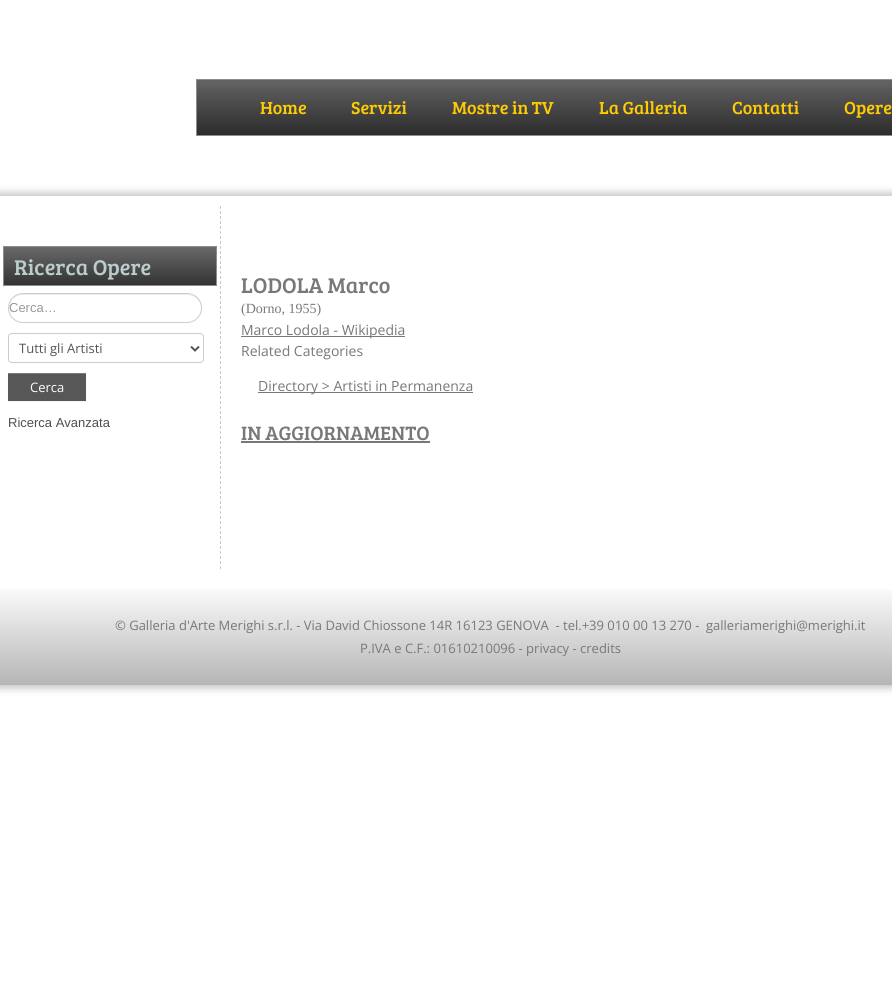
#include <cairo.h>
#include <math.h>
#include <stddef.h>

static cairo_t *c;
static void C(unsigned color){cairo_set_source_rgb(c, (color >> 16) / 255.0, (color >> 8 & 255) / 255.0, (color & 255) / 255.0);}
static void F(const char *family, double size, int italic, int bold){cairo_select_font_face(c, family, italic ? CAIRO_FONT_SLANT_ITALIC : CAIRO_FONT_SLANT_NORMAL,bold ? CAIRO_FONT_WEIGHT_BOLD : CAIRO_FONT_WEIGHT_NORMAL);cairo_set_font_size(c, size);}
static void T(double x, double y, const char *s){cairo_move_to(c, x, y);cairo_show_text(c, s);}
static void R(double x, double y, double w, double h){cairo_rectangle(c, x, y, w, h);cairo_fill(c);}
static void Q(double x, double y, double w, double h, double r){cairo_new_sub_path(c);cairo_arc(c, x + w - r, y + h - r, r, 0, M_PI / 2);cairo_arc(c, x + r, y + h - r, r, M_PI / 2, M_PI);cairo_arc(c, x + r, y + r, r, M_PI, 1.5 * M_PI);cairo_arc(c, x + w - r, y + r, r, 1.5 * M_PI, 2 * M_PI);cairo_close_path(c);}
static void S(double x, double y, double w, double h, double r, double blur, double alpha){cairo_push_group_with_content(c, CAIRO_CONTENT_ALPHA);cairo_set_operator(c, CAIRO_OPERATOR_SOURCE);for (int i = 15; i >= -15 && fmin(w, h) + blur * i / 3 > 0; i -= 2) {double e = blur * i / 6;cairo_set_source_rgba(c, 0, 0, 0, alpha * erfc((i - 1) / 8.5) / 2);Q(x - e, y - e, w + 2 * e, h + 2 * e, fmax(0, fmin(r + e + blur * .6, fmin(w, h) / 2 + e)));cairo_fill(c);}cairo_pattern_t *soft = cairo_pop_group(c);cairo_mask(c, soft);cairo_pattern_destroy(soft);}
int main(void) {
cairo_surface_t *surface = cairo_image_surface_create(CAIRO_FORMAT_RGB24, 892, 982);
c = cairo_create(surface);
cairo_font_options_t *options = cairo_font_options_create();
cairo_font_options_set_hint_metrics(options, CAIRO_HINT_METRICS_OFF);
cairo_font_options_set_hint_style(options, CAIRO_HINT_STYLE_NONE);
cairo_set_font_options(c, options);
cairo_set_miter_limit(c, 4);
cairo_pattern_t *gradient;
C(0xffffff);
cairo_paint(c);
gradient = cairo_pattern_create_linear(588,79,588,136);
cairo_pattern_add_color_stop_rgba(gradient,0,0.388,0.388,0.388,1);
cairo_pattern_add_color_stop_rgba(gradient,1,0.169,0.169,0.169,1);
cairo_set_source(c,gradient);
cairo_pattern_destroy(gradient);
R(197,80,695,55);
gradient = cairo_pattern_create_linear(588,79,588,136);
cairo_pattern_add_color_stop_rgba(gradient,0,0.443,0.443,0.443,.24);
cairo_pattern_add_color_stop_rgba(gradient,1,0.114,0.114,0.114,.14);
cairo_set_source(c,gradient);
cairo_pattern_destroy(gradient);
R(197,81,695,7);
cairo_rectangle(c,196.5,79.5,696,56);
C(0x8c8c8c);
cairo_set_line_width(c,1);
cairo_stroke(c);
F("Bree Serif",18,0,0);
C(0xffcc01);
T(260,114,"Home");
T(351,114,"Servizi");
T(452,114,"Mostre in TV");
T(599,114,"La Galleria");
T(732,114,"Contatti");
T(844,114,"Opere");
cairo_save(c);
cairo_set_fill_rule(c,CAIRO_FILL_RULE_EVEN_ODD);
cairo_new_path(c);
cairo_move_to(c,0,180);
cairo_line_to(c,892,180);
cairo_line_to(c,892,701);
cairo_line_to(c,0,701);
cairo_close_path(c);
cairo_move_to(c,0,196);
cairo_line_to(c,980,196);
cairo_line_to(c,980,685);
cairo_line_to(c,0,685);
cairo_close_path(c);
cairo_clip(c);
C(0x000000);
S(-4,192,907,497,0,3.5,.2);
cairo_restore(c);
cairo_new_path(c);
cairo_move_to(c,220.5,206);
cairo_line_to(c,220.5,569);
C(0xbccdcd);
cairo_set_dash(c,(double[]){3,2},2,0);
cairo_stroke(c);
gradient = cairo_pattern_create_linear(110,247,110,285);
cairo_pattern_add_color_stop_rgba(gradient,0,0.412,0.412,0.412,1);
cairo_pattern_add_color_stop_rgba(gradient,1,0.2,0.2,0.2,1);
cairo_set_source(c,gradient);
cairo_pattern_destroy(gradient);
R(4,247,212,38);
gradient = cairo_pattern_create_linear(110,247,110,285);
cairo_pattern_add_color_stop_rgba(gradient,0,0.463,0.463,0.463,.23);
cairo_pattern_add_color_stop_rgba(gradient,1,0.149,0.149,0.149,.13);
cairo_set_source(c,gradient);
cairo_pattern_destroy(gradient);
R(4,247,212,1);
cairo_rectangle(c,3.5,246.5,213,39);
C(0x8c8c8c);
cairo_set_dash(c,NULL,0,0);
cairo_stroke(c);
F("Bree Serif",22,0,0);
C(0xbccdcd);
T(14,275,"Ricerca Opere");
C(0xececec);
cairo_new_path(c);
cairo_move_to(c,23,295);
cairo_line_to(c,187,295);
cairo_curve_to(c,195,295,201,301,201,308);
cairo_curve_to(c,202,288,170,294,160,294);
cairo_line_to(c,50,294);
cairo_curve_to(c,40,294,8,288,9,308);
cairo_curve_to(c,9,301,15,295,23,295);
cairo_close_path(c);
cairo_fill(c);
Q(8.5,293.5,193,29,14.5);
C(0xcccccc);
cairo_stroke(c);
F("Liberation Sans",13,0,0);
C(0x999999);
T(9,312,"Cerca…");
Q(8.5,333.5,195,29,3.5);
C(0xcccccc);
cairo_stroke(c);
cairo_new_path(c);
cairo_move_to(c,191,346.5);
cairo_line_to(c,195,350.5);
cairo_line_to(c,199,346.5);
C(0x555555);
cairo_set_line_width(c,2);
cairo_stroke(c);
F("Open Sans",13,0,0);
T(19,353,"Tutti gli Artisti");
C(0x000000);
S(8,374,78,28,0,1,.05);
C(0x575757);
R(8,374,78,27);
C(0x797979);
R(8,373,78,1);
C(0xffffff);
T(30,392,"Cerca");
F("Liberation Sans",13,0,0);
C(0x4f4f4f);
T(8,427,"Ricerca Avanzata");
F("Bree Serif",22,0,0);
C(0x787878);
T(241,293,"LODOLA Marco");
F("Liberation Serif",14,0,0);
T(241,313,"(Dorno, 1955)");
R(241,336,164,1);
F("Open Sans",14,0,0);
T(241,335,"Marco Lodola - Wikipedia");
T(241,356,"Related Categories");
R(258,392,215,1);
T(258,391,"Directory > Artisti in Permanenza");
F("Bree Serif",20,0,0);
T(241,440,"IN AGGIORNAMENTO");
R(241,441,189,2);
gradient = cairo_pattern_create_linear(490,589,490,685);
cairo_pattern_add_color_stop_rgba(gradient,0,0.98,0.98,0.98,1);
cairo_pattern_add_color_stop_rgba(gradient,1,0.71,0.71,0.71,1);
cairo_set_source(c,gradient);
cairo_pattern_destroy(gradient);
R(0,589,892,96);
F("Open Sans",13,0,0);
C(0x787878);
T(115,630,"© Galleria d'Arte Merighi s.r.l. - Via David Chiossone 14R 16123 GENOVA  - tel.+39 010 00 13 270 -");
T(706,630,"galleriamerighi@merighi.it");
T(360,653,"P.IVA e C.F.: 01610210096 - privacy - credits");
cairo_surface_write_to_png(surface, "o.png");
cairo_font_options_destroy(options);
cairo_destroy(c);
cairo_surface_destroy(surface);
return 0;
}
